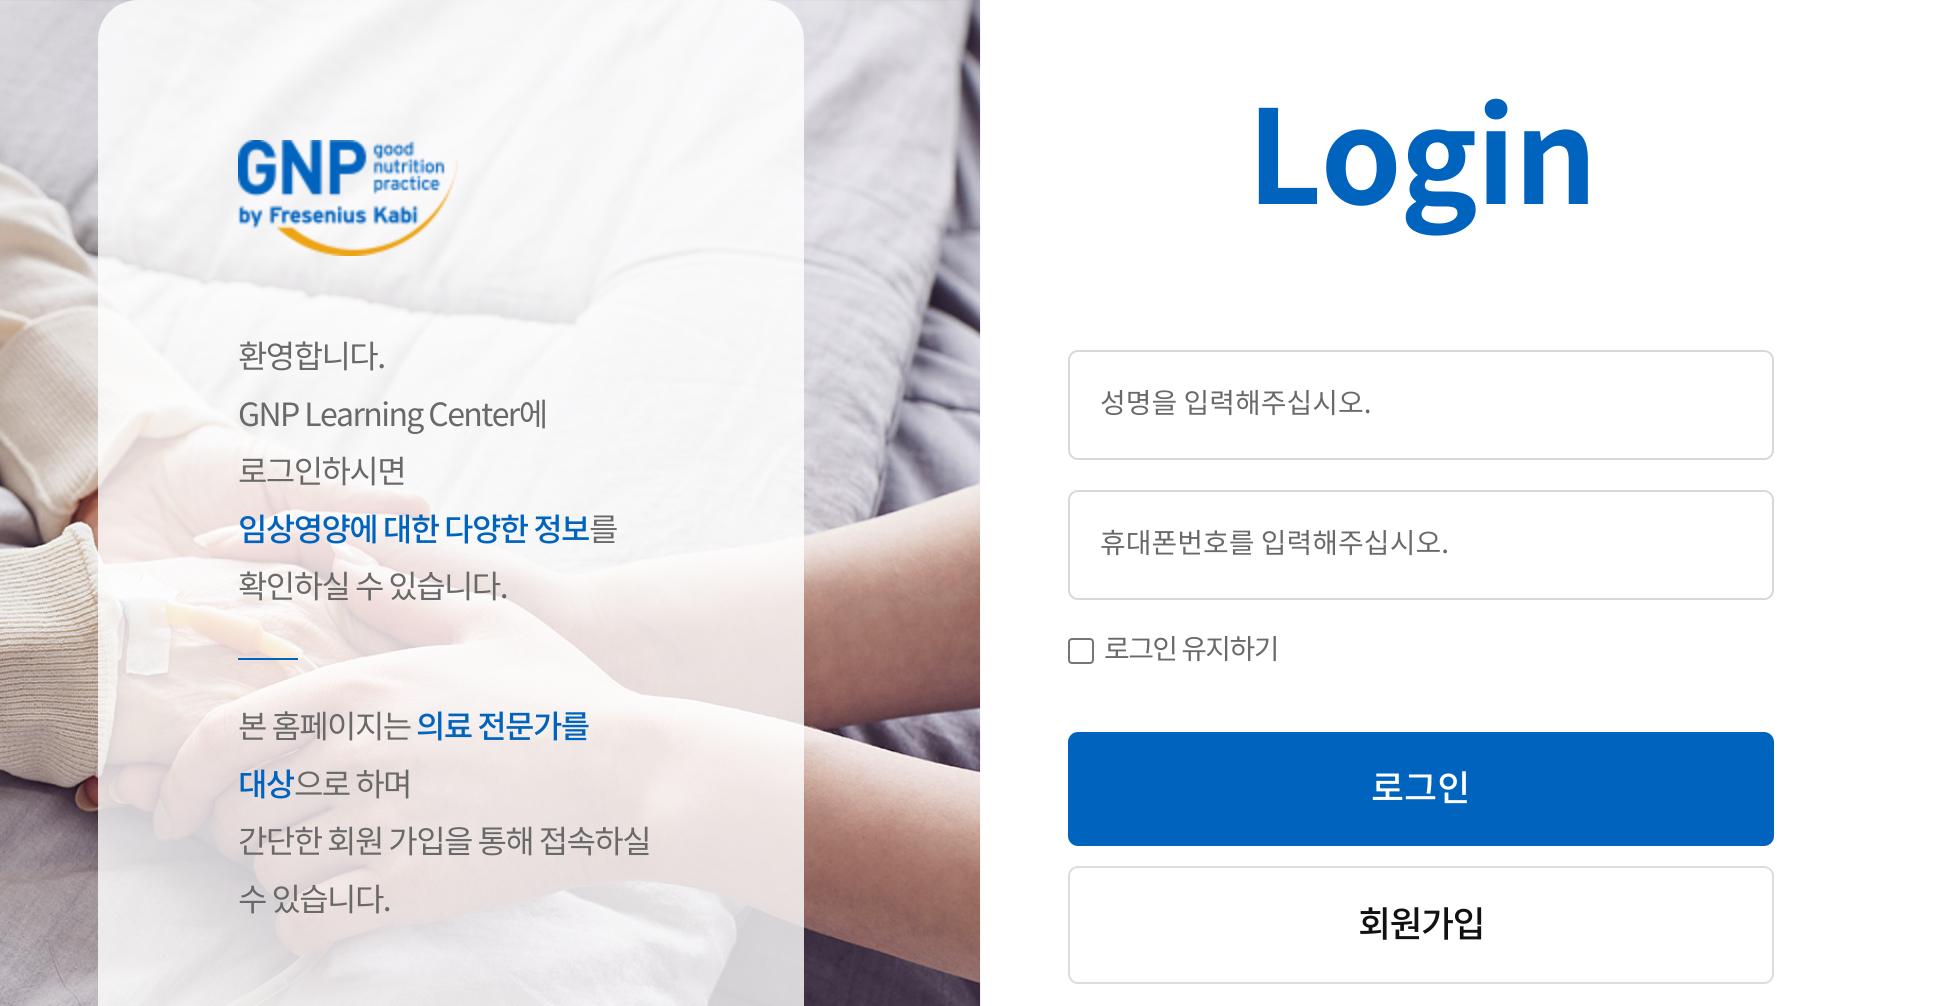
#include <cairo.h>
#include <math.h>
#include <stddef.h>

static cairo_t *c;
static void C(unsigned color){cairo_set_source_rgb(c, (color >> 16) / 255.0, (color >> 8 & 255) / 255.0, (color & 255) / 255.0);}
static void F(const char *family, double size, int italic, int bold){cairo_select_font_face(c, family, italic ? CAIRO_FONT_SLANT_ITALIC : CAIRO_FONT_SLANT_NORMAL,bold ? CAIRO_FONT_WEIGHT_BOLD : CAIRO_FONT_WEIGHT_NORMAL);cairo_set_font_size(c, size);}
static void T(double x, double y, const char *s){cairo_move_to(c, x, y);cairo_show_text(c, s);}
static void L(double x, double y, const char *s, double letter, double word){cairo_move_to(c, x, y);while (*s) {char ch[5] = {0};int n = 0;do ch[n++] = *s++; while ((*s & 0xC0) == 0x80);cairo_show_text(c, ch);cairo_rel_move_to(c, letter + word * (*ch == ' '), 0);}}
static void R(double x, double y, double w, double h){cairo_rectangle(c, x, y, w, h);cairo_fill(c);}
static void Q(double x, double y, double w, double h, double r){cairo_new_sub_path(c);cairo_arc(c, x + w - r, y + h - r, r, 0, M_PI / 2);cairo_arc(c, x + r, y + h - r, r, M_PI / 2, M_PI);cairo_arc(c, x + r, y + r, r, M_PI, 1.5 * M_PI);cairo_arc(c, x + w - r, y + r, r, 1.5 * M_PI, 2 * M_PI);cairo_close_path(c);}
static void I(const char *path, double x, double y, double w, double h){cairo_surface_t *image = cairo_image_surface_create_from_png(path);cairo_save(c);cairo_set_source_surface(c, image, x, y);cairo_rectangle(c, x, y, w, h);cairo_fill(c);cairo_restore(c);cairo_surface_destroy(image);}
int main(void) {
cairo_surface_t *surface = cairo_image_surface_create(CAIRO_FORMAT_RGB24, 1959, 1006);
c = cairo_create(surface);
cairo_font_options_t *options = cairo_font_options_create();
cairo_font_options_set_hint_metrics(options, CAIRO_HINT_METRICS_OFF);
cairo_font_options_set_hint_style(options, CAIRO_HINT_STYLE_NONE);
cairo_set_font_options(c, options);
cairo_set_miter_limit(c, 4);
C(0xffffff);
cairo_paint(c);
I("1.png",0,0,981,1006);
cairo_set_source_rgba(c,1,1,1,0.8);
Q(98,0,706,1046,40);
cairo_fill(c);
I("2.png",238,140,220,116);
F("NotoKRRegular",32,0,0);
C(0x696969);
L(238,368,"환영합니다.",-1.6,0);
L(238,426,"GNP Learning Center에",-1.6,0);
L(238,483,"로그인하시면",-1.6,0);
F("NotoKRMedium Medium",32,0,0);
C(0x0063be);
L(238,541,"임상영양에 대한 다양한 정보",-1.6,0);
F("NotoKRRegular",32,0,0);
C(0x696969);
L(589,541,"를",-1.6,0);
L(238,598,"확인하실 수 있습니다.",-1.6,0);
C(0x0063be);
R(238,658,60,2);
C(0x696969);
L(238,738,"본 홈페이지는",-1.6,0);
F("NotoKRMedium Medium",32,0,0);
C(0x0063be);
L(416,738,"의료 전문가를",-1.6,0);
L(238,796,"대상",-1.6,0);
F("NotoKRRegular",32,0,0);
C(0x696969);
L(294,796,"으로 하며",-1.6,0);
L(238,853,"간단한 회원 가입을 통해 접속하실",-1.6,0);
L(238,911,"수 있습니다.",-1.6,0);
F("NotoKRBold",130,0,1);
C(0x0063be);
L(1247,204,"Login",-1.6,0);
Q(1069,351,704,108,9);
C(0xd8d8d8);
cairo_stroke(c);
F("NotoKRRegular",28,0,0);
C(0x696969);
T(1100,413,"성명을 입력해주십시오.");
Q(1069,491,704,108,9);
C(0xd8d8d8);
cairo_stroke(c);
C(0x696969);
T(1100,553,"휴대폰번호를 입력해주십시오.");
Q(1069,639,24,24,3);
C(0x767676);
cairo_stroke(c);
C(0x696969);
L(1104,659,"로그인 유지하기",-1.6,0);
C(0x0063be);
Q(1068,732,706,114,10);
cairo_fill(c);
F("NotoKRMedium Medium",36,0,0);
C(0xffffff);
T(1371,801,"로그인");
Q(1069,867,704,116,9);
C(0xdddddd);
cairo_stroke(c);
C(0x111111);
L(1358,937,"회원가입",-1.6,0);
cairo_surface_write_to_png(surface, "o.png");
cairo_font_options_destroy(options);
cairo_destroy(c);
cairo_surface_destroy(surface);
return 0;
}
